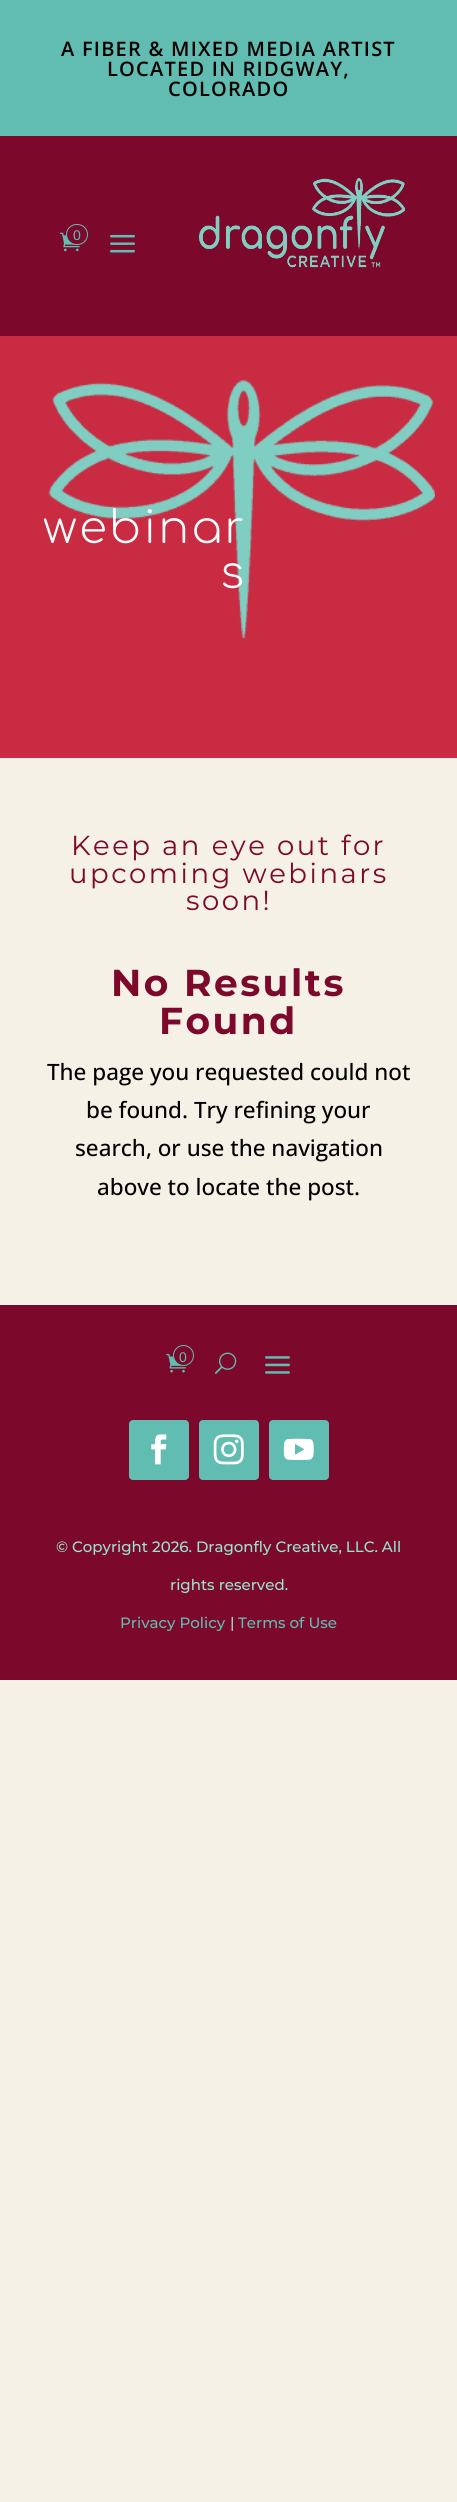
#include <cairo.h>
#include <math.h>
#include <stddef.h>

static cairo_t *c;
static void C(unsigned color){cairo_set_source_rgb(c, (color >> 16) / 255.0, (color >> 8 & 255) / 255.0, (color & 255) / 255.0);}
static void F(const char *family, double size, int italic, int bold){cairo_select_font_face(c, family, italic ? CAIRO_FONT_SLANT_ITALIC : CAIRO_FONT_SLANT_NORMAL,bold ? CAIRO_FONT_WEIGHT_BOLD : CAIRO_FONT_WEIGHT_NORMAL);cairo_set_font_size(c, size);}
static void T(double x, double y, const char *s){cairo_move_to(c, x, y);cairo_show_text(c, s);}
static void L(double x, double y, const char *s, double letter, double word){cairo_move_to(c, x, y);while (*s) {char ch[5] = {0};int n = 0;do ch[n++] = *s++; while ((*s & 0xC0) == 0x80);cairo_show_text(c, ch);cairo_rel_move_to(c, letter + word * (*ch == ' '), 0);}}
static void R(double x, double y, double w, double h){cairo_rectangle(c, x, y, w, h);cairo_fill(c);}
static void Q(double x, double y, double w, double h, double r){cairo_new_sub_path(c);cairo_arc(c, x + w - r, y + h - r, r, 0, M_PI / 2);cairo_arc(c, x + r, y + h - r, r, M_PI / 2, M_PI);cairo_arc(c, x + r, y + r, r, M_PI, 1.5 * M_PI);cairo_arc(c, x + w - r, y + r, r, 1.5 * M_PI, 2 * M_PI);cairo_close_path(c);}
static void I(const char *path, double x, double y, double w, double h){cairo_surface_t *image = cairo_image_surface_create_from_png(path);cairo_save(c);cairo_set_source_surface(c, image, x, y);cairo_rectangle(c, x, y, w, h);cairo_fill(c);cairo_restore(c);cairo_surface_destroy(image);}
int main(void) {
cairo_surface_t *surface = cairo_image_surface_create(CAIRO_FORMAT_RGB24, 457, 2502);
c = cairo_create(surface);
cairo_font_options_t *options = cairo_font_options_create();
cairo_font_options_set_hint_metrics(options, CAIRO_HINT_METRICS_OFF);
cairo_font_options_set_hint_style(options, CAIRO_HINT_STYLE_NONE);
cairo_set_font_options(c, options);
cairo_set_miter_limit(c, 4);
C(0xf6f1e6);
cairo_paint(c);
C(0x61bcb1);
R(0,0,457,136);
F("Open Sans SemiBold",20,0,0);
C(0x000000);
L(61,56,"A FIBER & MIXED MEDIA ARTIST",1.25,0);
L(107,76,"LOCATED IN RIDGWAY,",1.25,0);
L(168,96,"COLORADO",1.25,0);
C(0x7c092c);
R(0,136,457,200);
I("1.png",60,232,20,20);
Q(66.5,224.5,21,20,10);
cairo_fill_preserve(c);
C(0x61bcb1);
cairo_set_line_width(c,1);
cairo_stroke(c);
F("Liberation Sans",14,0,0);
T(73,240,"0");
I("2.png",110,234,25,19);
I("3.png",199,178,206,90);
C(0xc82b42);
R(0,336,457,422);
I("4.png",48,380,387,259);
F("Comfortaa Light",45,0,0);
C(0xffffff);
L(43,543,"webinar",2.5,0);
L(220,588,"s",2.5,0);
F("Montserrat",27.5,0,0);
C(0x7c092c);
L(71,855,"Keep an eye out for",2.5,0);
L(69,883,"upcoming webinars",2.5,0);
L(186,910,"soon!",2.5,0);
F("Montserrat",37.5,0,1);
L(111,996,"No Results",2.5,0);
L(159,1034,"Found",2.5,0);
F("Open Sans Medium",22.5,0,0);
C(0x000000);
T(47,1080,"The page you requested could not");
T(86,1118,"be found. Try refining your");
T(75,1156,"search, or use the navigation");
T(97,1195,"above to locate the post.");
C(0x7c092c);
R(0,1305,457,375);
I("5.png",166,1353,20,20);
cairo_arc(c,183.5,1355.5,10,0,2 * M_PI);
cairo_fill_preserve(c);
C(0x61bcb1);
cairo_stroke(c);
F("Liberation Sans",14,0,0);
T(179,1362,"0");
I("6.png",215,1352,22,22);
I("7.png",265,1356,25,18);
Q(129,1420,60,60,4);
cairo_fill(c);
I("8.png",151,1434,16,31);
Q(199,1420,60,60,4);
cairo_fill(c);
I("9.png",213,1434,31,31);
Q(269,1420,60,60,4);
cairo_fill(c);
I("10.png",283,1438,31,23);
F("Montserrat Medium",15,0,0);
C(0x98e5d0);
T(56,1552,"© Copyright 2026. Dragonfly Creative, LLC. All");
T(170,1590,"rights reserved.");
C(0x61bcb1);
T(120,1628,"Privacy Policy");
C(0x98e5d0);
T(230,1628,"|");
C(0x61bcb1);
T(238,1628,"Terms of Use");
cairo_surface_write_to_png(surface, "o.png");
cairo_font_options_destroy(options);
cairo_destroy(c);
cairo_surface_destroy(surface);
return 0;
}
